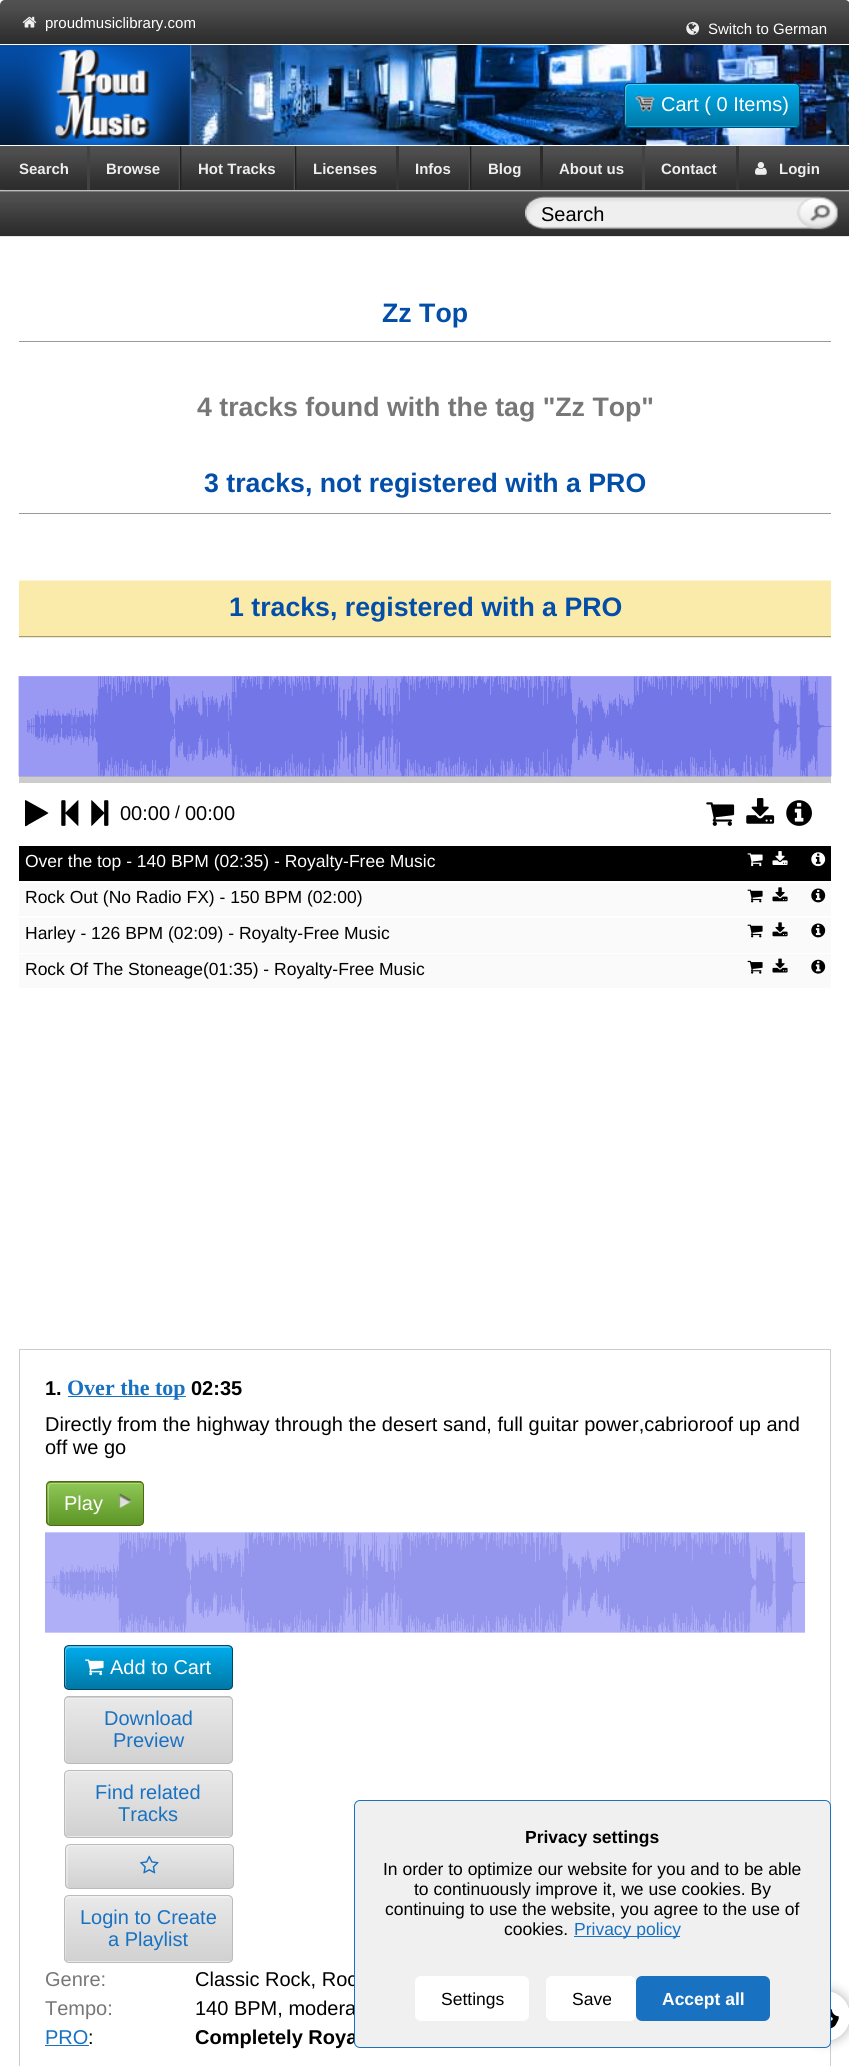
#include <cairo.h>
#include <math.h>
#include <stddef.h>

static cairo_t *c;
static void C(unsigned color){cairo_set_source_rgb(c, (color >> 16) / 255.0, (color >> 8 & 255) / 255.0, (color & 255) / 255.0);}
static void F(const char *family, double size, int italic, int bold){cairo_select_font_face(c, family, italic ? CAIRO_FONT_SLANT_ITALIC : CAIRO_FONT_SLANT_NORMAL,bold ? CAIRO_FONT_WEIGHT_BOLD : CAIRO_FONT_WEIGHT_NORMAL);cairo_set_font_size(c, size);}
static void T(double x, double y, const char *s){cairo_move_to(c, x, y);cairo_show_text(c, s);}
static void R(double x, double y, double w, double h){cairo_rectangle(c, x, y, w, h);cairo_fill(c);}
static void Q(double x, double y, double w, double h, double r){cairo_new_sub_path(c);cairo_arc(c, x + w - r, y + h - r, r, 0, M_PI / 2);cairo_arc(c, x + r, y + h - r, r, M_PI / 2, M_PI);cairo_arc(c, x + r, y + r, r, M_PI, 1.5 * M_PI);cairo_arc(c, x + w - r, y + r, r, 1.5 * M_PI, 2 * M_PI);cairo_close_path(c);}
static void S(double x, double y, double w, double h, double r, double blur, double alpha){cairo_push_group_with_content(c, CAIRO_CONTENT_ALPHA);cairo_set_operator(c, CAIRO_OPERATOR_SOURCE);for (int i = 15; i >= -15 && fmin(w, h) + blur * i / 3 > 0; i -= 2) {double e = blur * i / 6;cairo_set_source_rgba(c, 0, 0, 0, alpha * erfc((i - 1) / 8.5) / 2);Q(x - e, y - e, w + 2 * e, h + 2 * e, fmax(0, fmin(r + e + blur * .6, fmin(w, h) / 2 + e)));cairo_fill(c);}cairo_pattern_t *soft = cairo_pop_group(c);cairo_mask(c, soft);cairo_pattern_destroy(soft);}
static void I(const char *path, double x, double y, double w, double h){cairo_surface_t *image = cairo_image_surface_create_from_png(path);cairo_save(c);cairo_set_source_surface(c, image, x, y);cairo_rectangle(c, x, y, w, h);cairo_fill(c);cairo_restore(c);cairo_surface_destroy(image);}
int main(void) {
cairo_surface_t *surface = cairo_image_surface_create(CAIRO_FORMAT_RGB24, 849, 2066);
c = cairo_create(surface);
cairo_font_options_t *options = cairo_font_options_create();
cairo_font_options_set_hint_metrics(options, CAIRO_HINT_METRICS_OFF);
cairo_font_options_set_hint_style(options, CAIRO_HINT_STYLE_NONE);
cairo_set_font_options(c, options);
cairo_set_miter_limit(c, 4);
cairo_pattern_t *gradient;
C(0xffffff);
cairo_paint(c);
I("1.png",0,0,849,44);
I("2.png",22,16,15,12);
F("Liberation Sans",15,0,0);
C(0xffffff);
T(45,28,"proudmusiclibrary.com");
I("3.png",686,22,14,13);
T(708,34,"Switch to German");
I("4.png",191,45,658,100);
I("5.png",0,45,192,100);
cairo_save(c);
Q(624,83,176,45,5);
cairo_clip(c);
gradient = cairo_pattern_create_linear(625,84,625,126);
cairo_pattern_add_color_stop_rgba(gradient,0,0,0.678,0.933,1);
cairo_pattern_add_color_stop_rgba(gradient,1,0,0.471,0.647,1);
cairo_set_source(c,gradient);
cairo_pattern_destroy(gradient);
R(624,84,176,42);
gradient = cairo_pattern_create_linear(625,126,625,169);
cairo_pattern_add_color_stop_rgba(gradient,0,0,0.678,0.933,1);
cairo_pattern_add_color_stop_rgba(gradient,1,0,0.471,0.647,1);
cairo_set_source(c,gradient);
cairo_pattern_destroy(gradient);
R(624,126,176,2);
cairo_restore(c);
cairo_set_source_rgba(c,1,1,1,0.3);
cairo_new_path(c);
cairo_move_to(c,630,85);
cairo_line_to(c,796,85);
cairo_line_to(c,798,86);
cairo_curve_to(c,798,85,796,84,795,84);
cairo_line_to(c,629,84);
cairo_curve_to(c,627,84,625,86,625,88);
cairo_line_to(c,625,122);
cairo_curve_to(c,625,123,625,124,626,125);
cairo_line_to(c,626,95);
cairo_curve_to(c,626,92,625,85,630,85);
cairo_close_path(c);
cairo_fill(c);
Q(624.5,83.5,175,44,4.5);
C(0x034462);
cairo_set_line_width(c,1);
cairo_stroke(c);
I("6.png",635,95,20,18);
F("Liberation Sans",20,0,0);
C(0xffffff);
T(661,111,"Cart ( 0 Items)");
I("7.png",0,146,849,91);
I("8.png",3,189,844,1);
F("Liberation Sans",15,0,1);
C(0xeeeeee);
T(19,174,"Search");
C(0x434242);
R(87,146,3,44);
C(0xeeeeee);
T(106,174,"Browse");
I("9.png",178,146,4,44);
T(198,174,"Hot Tracks");
I("9.png",293,146,4,44);
T(313,174,"Licenses");
C(0x363535);
R(396,146,3,44);
C(0xeeeeee);
T(415,174,"Infos");
I("9.png",468,146,4,44);
T(488,174,"Blog");
C(0x2c2b2b);
R(540,146,3,44);
C(0xeeeeee);
T(559,174,"About us");
C(0x434242);
R(642,146,3,44);
C(0xeeeeee);
T(661,174,"Contact");
C(0x363535);
R(736,146,3,44);
I("10.png",755,162,12,13);
C(0xeeeeee);
T(779,174,"Login");
I("11.png",525,196,313,34);
F("Liberation Sans",20,0,0);
C(0x000000);
T(541,221,"Search");
C(0x999999);
R(19,341,812,1);
F("Liberation Sans",26.7,0,1);
C(0x034ea8);
T(382,322,"Zz Top");
C(0x777777);
T(197,416,"4 tracks found with the tag \"Zz Top\"");
C(0x999999);
R(19,513,812,1);
C(0x034ea8);
T(204,492,"3 tracks, not registered with a PRO");
C(0xfbebaa);
R(19,581,812,57);
C(0xfdf5d5);
R(19,580,812,1);
C(0x999999);
R(19,636,812,1);
C(0x034ea8);
T(229,616,"1 tracks, registered with a PRO");
C(0xcccccc);
R(19,776,812,7);
I("12.png",18,676,814,101);
C(0x000000);
cairo_new_path(c);
cairo_move_to(c,48,813.5);
cairo_line_to(c,29.5,824);
cairo_curve_to(c,29,824,26,827,25,826);
cairo_line_to(c,25,800.5);
cairo_line_to(c,25.5,800);
cairo_line_to(c,44.5,810.5);
cairo_line_to(c,48.5,813);
cairo_close_path(c);
cairo_fill(c);
I("13.png",61,800,18,26);
I("14.png",91,800,18,26);
F("Liberation Sans",20,0,0);
T(120,820,"00:00");
F("Liberation Sans",17.5,0,0);
T(175,818,"/");
F("Liberation Sans",20,0,0);
T(185,820,"00:00");
I("15.png",706,802,29,24);
I("16.png",746,798,29,26);
I("17.png",786,800,26,26);
R(19,846,812,35);
F("Liberation Sans",17.5,0,0);
C(0xffffff);
T(25,867,"Over the top - 140 BPM (02:35) - Royalty-Free Music");
I("18.png",747,853,16,14);
I("19.png",772,851,16,14);
I("20.png",811,852,15,15);
C(0xfafafa);
R(19,883,812,33);
C(0x000000);
T(25,903,"Rock Out (No Radio FX) - 150 BPM (02:00)");
I("21.png",747,889,16,14);
I("22.png",772,887,16,15);
I("23.png",811,888,15,15);
C(0xfafafa);
R(19,918,812,35);
C(0x000000);
T(25,939,"Harley - 126 BPM (02:09) - Royalty-Free Music");
I("21.png",747,924,16,14);
I("22.png",772,922,16,15);
I("23.png",811,923,15,15);
C(0xfafafa);
R(19,954,812,34);
C(0x000000);
T(25,975,"Rock Of The Stoneage(01:35) - Royalty-Free Music");
I("24.png",747,960,16,14);
I("25.png",772,958,16,15);
I("26.png",811,959,15,15);
cairo_rectangle(c,19.5,1349.5,811,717);
C(0xcccccc);
cairo_stroke(c);
F("Liberation Sans",20,0,1);
C(0x000000);
T(45,1395,"1.");
C(0x1971c1);
R(68,1396,118,1);
F("Liberation Serif",22,0,1);
T(67,1395,"Over the top");
F("Liberation Sans",20,0,1);
C(0x000000);
T(191,1395,"02:35");
F("Liberation Sans",20,0,0);
T(45,1431,"Directly from the highway through the desert sand, full guitar power,cabrioroof up and");
T(45,1454,"off we go");
cairo_save(c);
Q(46,1481,98,45,5);
cairo_clip(c);
gradient = cairo_pattern_create_linear(48,1440,48,1483);
cairo_pattern_add_color_stop_rgba(gradient,0,0.561,0.784,0.341,1);
cairo_pattern_add_color_stop_rgba(gradient,1,0.361,0.58,0.145,1);
cairo_set_source(c,gradient);
cairo_pattern_destroy(gradient);
R(46,1481,98,2);
gradient = cairo_pattern_create_linear(48,1483,48,1525);
cairo_pattern_add_color_stop_rgba(gradient,0,0.561,0.784,0.341,1);
cairo_pattern_add_color_stop_rgba(gradient,1,0.361,0.58,0.145,1);
cairo_set_source(c,gradient);
cairo_pattern_destroy(gradient);
R(46,1483,98,42);
cairo_restore(c);
cairo_set_source_rgba(c,1,1,1,0.3);
cairo_new_path(c);
cairo_move_to(c,52,1484);
cairo_line_to(c,140,1484);
cairo_line_to(c,142,1484);
cairo_curve_to(c,141,1484,140,1483,139,1483);
cairo_line_to(c,52,1483);
cairo_curve_to(c,50,1483,48,1485,48,1487);
cairo_line_to(c,48,1521);
cairo_curve_to(c,48,1522,48,1523,49,1524);
cairo_line_to(c,49,1494);
cairo_curve_to(c,49,1491,48,1484,52,1484);
cairo_close_path(c);
cairo_fill(c);
Q(46.5,1481.5,97,44,4.5);
C(0x556611);
cairo_stroke(c);
C(0xffffff);
T(64,1510,"Play");
I("27.png",118,1493,14,15);
I("28.png",45,1532,760,101);
cairo_save(c);
Q(64,1645,169,45,5);
cairo_clip(c);
gradient = cairo_pattern_create_linear(65,1646,65,1689);
cairo_pattern_add_color_stop_rgba(gradient,0,0,0.678,0.933,1);
cairo_pattern_add_color_stop_rgba(gradient,1,0,0.471,0.647,1);
cairo_set_source(c,gradient);
cairo_pattern_destroy(gradient);
R(64,1646,169,43);
cairo_restore(c);
cairo_set_source_rgba(c,1,1,1,0.3);
cairo_new_path(c);
cairo_move_to(c,70,1648);
cairo_line_to(c,231,1648);
cairo_curve_to(c,230,1647,229,1646,227,1646);
cairo_line_to(c,69,1646);
cairo_curve_to(c,67,1646,65,1648,65,1650);
cairo_line_to(c,65,1685);
cairo_curve_to(c,65,1686,66,1688,67,1688);
cairo_line_to(c,66,1686);
cairo_line_to(c,66,1651);
cairo_curve_to(c,66,1649,68,1648,70,1648);
cairo_close_path(c);
cairo_fill(c);
Q(64.5,1645.5,168,44,4.5);
C(0x034462);
cairo_stroke(c);
I("29.png",85,1659,19,17);
C(0xffffff);
T(110,1674,"Add to Cart");
cairo_save(c);
Q(64,1696,169,68,5);
cairo_clip(c);
gradient = cairo_pattern_create_linear(65,1633,65,1698);
cairo_pattern_add_color_stop_rgba(gradient,0,0.914,0.914,0.914,1);
cairo_pattern_add_color_stop_rgba(gradient,1,0.82,0.82,0.82,1);
cairo_set_source(c,gradient);
cairo_pattern_destroy(gradient);
R(64,1696,169,2);
gradient = cairo_pattern_create_linear(65,1698,65,1763);
cairo_pattern_add_color_stop_rgba(gradient,0,0.914,0.914,0.914,1);
cairo_pattern_add_color_stop_rgba(gradient,1,0.82,0.82,0.82,1);
cairo_set_source(c,gradient);
cairo_pattern_destroy(gradient);
R(64,1698,169,65);
cairo_restore(c);
cairo_set_source_rgba(c,1,1,1,0.3);
cairo_new_path(c);
cairo_move_to(c,70,1699);
cairo_line_to(c,230,1699);
cairo_curve_to(c,229,1698,228,1698,227,1698);
cairo_line_to(c,69,1698);
cairo_curve_to(c,67,1698,65,1700,65,1702);
cairo_line_to(c,65,1759);
cairo_curve_to(c,65,1760,66,1762,67,1762);
cairo_line_to(c,66,1760);
cairo_line_to(c,66,1701);
cairo_curve_to(c,67,1699,69,1699,70,1699);
cairo_close_path(c);
cairo_fill(c);
Q(64.5,1696.5,168,67,4.5);
C(0xbbbbbb);
cairo_stroke(c);
C(0x1971c1);
T(104,1725,"Download");
T(113,1747,"Preview");
cairo_save(c);
Q(64,1770,169,68,5);
cairo_clip(c);
gradient = cairo_pattern_create_linear(65,1771,65,1836);
cairo_pattern_add_color_stop_rgba(gradient,0,0.914,0.914,0.914,1);
cairo_pattern_add_color_stop_rgba(gradient,1,0.82,0.82,0.82,1);
cairo_set_source(c,gradient);
cairo_pattern_destroy(gradient);
R(64,1771,169,65);
gradient = cairo_pattern_create_linear(65,1836,65,1901);
cairo_pattern_add_color_stop_rgba(gradient,0,0.914,0.914,0.914,1);
cairo_pattern_add_color_stop_rgba(gradient,1,0.82,0.82,0.82,1);
cairo_set_source(c,gradient);
cairo_pattern_destroy(gradient);
R(64,1836,169,2);
cairo_restore(c);
cairo_set_source_rgba(c,1,1,1,0.3);
cairo_new_path(c);
cairo_move_to(c,70,1772);
cairo_line_to(c,230,1772);
cairo_curve_to(c,229,1771,228,1771,227,1771);
cairo_line_to(c,69,1771);
cairo_curve_to(c,67,1771,65,1773,65,1775);
cairo_line_to(c,65,1832);
cairo_curve_to(c,65,1833,65,1834,66,1835);
cairo_line_to(c,66,1786);
cairo_curve_to(c,66,1784,64,1772,70,1772);
cairo_close_path(c);
cairo_fill(c);
Q(64.5,1770.5,168,67,4.5);
C(0xbbbbbb);
cairo_stroke(c);
C(0x1971c1);
T(95,1799,"Find related");
T(118,1821,"Tracks");
cairo_save(c);
Q(65,1844,169,45,5);
cairo_clip(c);
gradient = cairo_pattern_create_linear(66,1845,66,1888);
cairo_pattern_add_color_stop_rgba(gradient,0,0.914,0.914,0.914,1);
cairo_pattern_add_color_stop_rgba(gradient,1,0.82,0.82,0.82,1);
cairo_set_source(c,gradient);
cairo_pattern_destroy(gradient);
R(65,1845,169,43);
cairo_restore(c);
cairo_set_source_rgba(c,1,1,1,0.3);
cairo_new_path(c);
cairo_move_to(c,71,1846);
cairo_line_to(c,230,1846);
cairo_line_to(c,232,1847);
cairo_curve_to(c,232,1846,230,1845,229,1845);
cairo_line_to(c,70,1845);
cairo_curve_to(c,68,1845,66,1847,66,1849);
cairo_line_to(c,66,1884);
cairo_curve_to(c,66,1886,67,1887,69,1888);
cairo_line_to(c,68,1885);
cairo_line_to(c,68,1850);
cairo_curve_to(c,68,1848,69,1846,71,1846);
cairo_close_path(c);
cairo_fill(c);
Q(65.5,1844.5,168,44,4.5);
C(0xbbbbbb);
cairo_stroke(c);
I("30.png",140,1855,19,19);
cairo_save(c);
Q(64,1895,169,68,5);
cairo_clip(c);
gradient = cairo_pattern_create_linear(65,1896,65,1961);
cairo_pattern_add_color_stop_rgba(gradient,0,0.914,0.914,0.914,1);
cairo_pattern_add_color_stop_rgba(gradient,1,0.82,0.82,0.82,1);
cairo_set_source(c,gradient);
cairo_pattern_destroy(gradient);
R(64,1896,169,65);
gradient = cairo_pattern_create_linear(65,1961,65,2026);
cairo_pattern_add_color_stop_rgba(gradient,0,0.914,0.914,0.914,1);
cairo_pattern_add_color_stop_rgba(gradient,1,0.82,0.82,0.82,1);
cairo_set_source(c,gradient);
cairo_pattern_destroy(gradient);
R(64,1961,169,2);
cairo_restore(c);
cairo_set_source_rgba(c,1,1,1,0.3);
cairo_new_path(c);
cairo_move_to(c,70,1898);
cairo_line_to(c,231,1898);
cairo_curve_to(c,230,1897,229,1896,227,1896);
cairo_line_to(c,69,1896);
cairo_curve_to(c,67,1896,65,1898,65,1900);
cairo_line_to(c,65,1957);
cairo_curve_to(c,65,1958,65,1959,66,1960);
cairo_line_to(c,66,1911);
cairo_curve_to(c,66,1907,64,1898,70,1898);
cairo_close_path(c);
cairo_fill(c);
Q(64.5,1895.5,168,67,4.5);
C(0xbbbbbb);
cairo_stroke(c);
C(0x1971c1);
T(80,1924,"Login to Create");
T(108,1946,"a Playlist");
C(0x777777);
T(45,1986,"Genre:");
C(0x000000);
T(195,1986,"Classic Rock, Roc");
C(0x777777);
T(45,2015,"Tempo:");
C(0x000000);
T(195,2015,"140 BPM, modera");
C(0x1971c1);
T(45,2044,"PRO");
R(45,2045,44,1);
C(0x000000);
T(88,2044,":");
F("Liberation Sans",20,0,1);
T(195,2044,"Completely Roya");
C(0x000000);
S(800,1991,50,50,25,6,.3);
C(0xffffff);
cairo_arc(c,825,2016,25,0,2 * M_PI);
cairo_fill(c);
C(0xf0f0f0);
Q(354.5,1800.5,476,247,5.5);
cairo_fill_preserve(c);
C(0x1971c1);
cairo_stroke(c);
F("Liberation Sans",17.5,0,1);
C(0x000000);
T(525,1843,"Privacy settings");
F("Liberation Sans",17.5,0,0);
T(383,1875,"In order to optimize our website for you and to be able");
T(414,1895,"to continuously improve it, we use cookies. By");
T(385,1915,"continuing to use the website, you agree to the use of");
T(504,1935,"cookies.");
C(0x1971c1);
R(574,1936,106,1);
T(574,1935,"Privacy policy");
C(0xffffff);
Q(415,1976,114,45,6);
cairo_fill(c);
C(0x000000);
T(441,2005,"Settings");
C(0xffffff);
Q(546,1976,90,45,6);
cairo_fill(c);
C(0x000000);
T(572,2005,"Save");
C(0x1971c1);
Q(636,1976,134,45,6);
cairo_fill(c);
F("Liberation Sans",17.5,0,1);
C(0xffffff);
T(662,2005,"Accept all");
I("31.png",831,2009,8,20);
cairo_surface_write_to_png(surface, "o.png");
cairo_font_options_destroy(options);
cairo_destroy(c);
cairo_surface_destroy(surface);
return 0;
}
